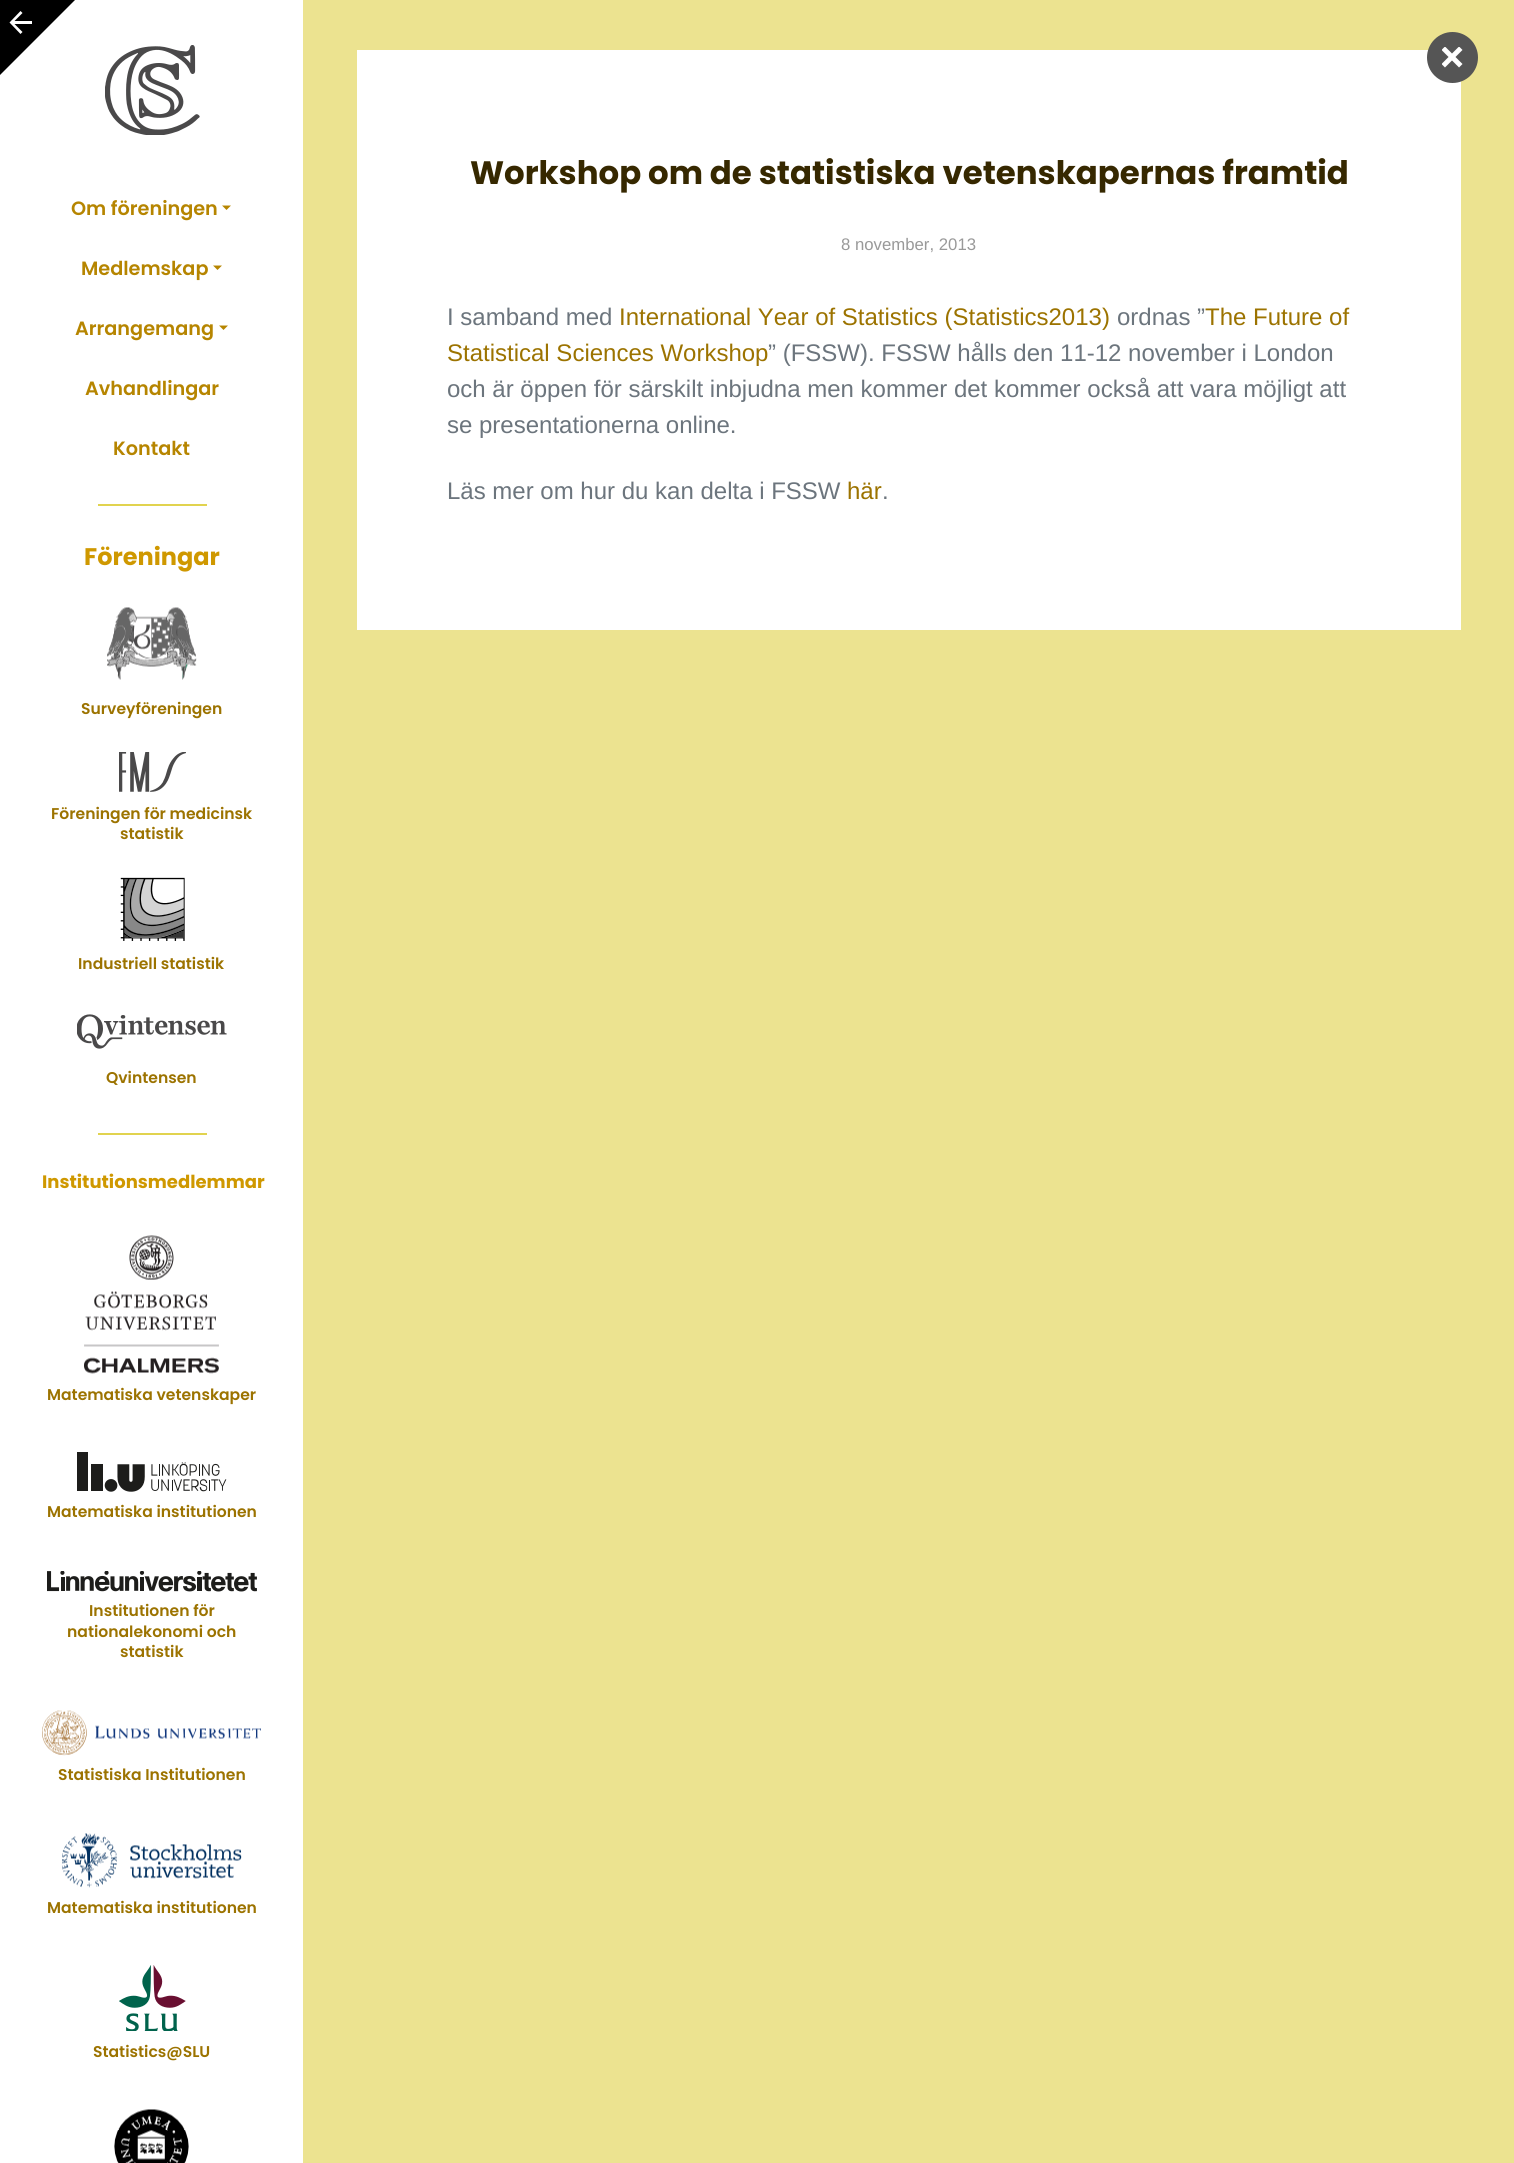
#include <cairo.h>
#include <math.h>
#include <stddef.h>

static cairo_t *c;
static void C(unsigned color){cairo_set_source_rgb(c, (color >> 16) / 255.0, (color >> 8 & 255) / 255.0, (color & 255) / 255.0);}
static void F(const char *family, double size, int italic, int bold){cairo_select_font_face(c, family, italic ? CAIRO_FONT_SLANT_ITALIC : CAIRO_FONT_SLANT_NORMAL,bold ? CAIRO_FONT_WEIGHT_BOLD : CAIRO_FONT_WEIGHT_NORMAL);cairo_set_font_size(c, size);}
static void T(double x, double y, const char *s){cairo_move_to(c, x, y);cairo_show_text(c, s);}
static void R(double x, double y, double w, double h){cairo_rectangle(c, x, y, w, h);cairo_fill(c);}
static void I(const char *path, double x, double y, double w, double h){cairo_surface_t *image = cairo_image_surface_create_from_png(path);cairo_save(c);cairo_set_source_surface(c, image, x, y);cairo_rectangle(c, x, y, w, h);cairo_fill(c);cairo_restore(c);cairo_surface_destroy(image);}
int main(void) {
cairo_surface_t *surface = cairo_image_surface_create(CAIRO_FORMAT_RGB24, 1514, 2163);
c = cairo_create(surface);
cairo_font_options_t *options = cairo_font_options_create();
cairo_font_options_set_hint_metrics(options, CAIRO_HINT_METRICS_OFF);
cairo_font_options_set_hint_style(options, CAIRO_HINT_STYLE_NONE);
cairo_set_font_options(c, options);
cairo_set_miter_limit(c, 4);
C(0xece390);
cairo_paint(c);
C(0xffffff);
R(0,0,303,2163);
C(0x000000);
cairo_new_path(c);
cairo_move_to(c,0,75);
cairo_line_to(c,75,0);
cairo_line_to(c,0,0);
cairo_close_path(c);
cairo_fill(c);
C(0xffffff);
cairo_new_path(c);
cairo_move_to(c,32,21);
cairo_line_to(c,14.5,21);
cairo_line_to(c,22.5,13);
cairo_line_to(c,20.5,11);
cairo_line_to(c,9.5,22.5);
cairo_line_to(c,20.5,34);
cairo_line_to(c,22.5,32);
cairo_line_to(c,14.5,24);
cairo_line_to(c,32,24);
cairo_close_path(c);
cairo_fill(c);
I("1.png",105,45,95,90);
F("Poppins SemiBold",19.25,0,0);
C(0xb68500);
T(71,215,"Om föreningen");
cairo_new_path(c);
cairo_move_to(c,222,205.5);
cairo_line_to(c,231,205.5);
cairo_line_to(c,226.5,210);
cairo_close_path(c);
cairo_fill(c);
T(81,275,"Medlemskap");
cairo_new_path(c);
cairo_move_to(c,213,265.5);
cairo_line_to(c,222,265.5);
cairo_line_to(c,217.5,270);
cairo_close_path(c);
cairo_fill(c);
T(75,335,"Arrangemang");
cairo_new_path(c);
cairo_move_to(c,219,325.5);
cairo_line_to(c,228,325.5);
cairo_line_to(c,223.5,330);
cairo_close_path(c);
cairo_fill(c);
T(85,395,"Avhandlingar");
T(113,455,"Kontakt");
C(0xe1d34f);
R(98,504,109,2);
F("Poppins",24,0,1);
C(0xcf9800);
T(84,565,"Föreningar");
I("2.png",107,607,90,73);
F("Poppins SemiBold",15.6,0,0);
C(0x9c7300);
T(81,714,"Surveyföreningen");
I("3.png",119,752,67,40);
T(51,819,"Föreningen för medicinsk");
T(120,839,"statistik");
I("4.png",120,877,65,64);
T(78,969,"Industriell statistik");
I("5.png",77,1014,150,35);
T(106,1083,"Qvintensen");
C(0xe1d34f);
R(98,1133,109,2);
F("Poppins",18,0,1);
C(0xcf9800);
T(42,1188,"Institutionsmedlemmar");
I("6.png",84,1235,135,139);
F("Poppins SemiBold",15.6,0,0);
C(0x9c7300);
T(47,1400,"Matematiska vetenskaper");
I("7.png",77,1452,150,40);
T(47,1517,"Matematiska institutionen");
I("8.png",47,1571,210,21);
T(89,1616,"Institutionen för");
T(67,1637,"nationalekonomi och");
T(120,1657,"statistik");
I("9.png",42,1710,219,46);
T(58,1780,"Statistiska Institutionen");
I("10.png",62,1833,180,55);
T(47,1913,"Matematiska institutionen");
I("11.png",119,1965,67,66);
T(93,2057,"Statistics@SLU");
I("12.png",114,2109,75,54);
C(0xffffff);
R(357,50,1104,580);
C(0x555555);
cairo_arc(c,1452.5,57.5,25.5,0,2 * M_PI);
cairo_fill(c);
I("13.png",1442,47,21,21);
F("Poppins",32.4,0,1);
C(0x362800);
T(470,184,"Workshop om de statistiska vetenskapernas framtid");
F("Liberation Sans",16.75,0,0);
C(0x999999);
T(841,250,"8 november, 2013");
F("Liberation Sans",24,0,0);
C(0x6c757d);
T(447,325,"I samband med");
C(0x9c7300);
T(619,325,"International Year of Statistics (Statistics2013)");
C(0x6c757d);
T(1117,325,"ordnas ”");
C(0x9c7300);
T(1205,325,"The Future of");
T(447,361,"Statistical Sciences Workshop");
C(0x6c757d);
T(768,361,"” (FSSW). FSSW hålls den 11-12 november i London");
T(447,397,"och är öppen för särskilt inbjudna men kommer det kommer också att vara möjligt att");
T(447,433,"se presentationerna online.");
T(447,499,"Läs mer om hur du kan delta i FSSW");
C(0x9c7300);
T(847,499,"här");
C(0x6c757d);
T(882,499,".");
cairo_surface_write_to_png(surface, "o.png");
cairo_font_options_destroy(options);
cairo_destroy(c);
cairo_surface_destroy(surface);
return 0;
}
